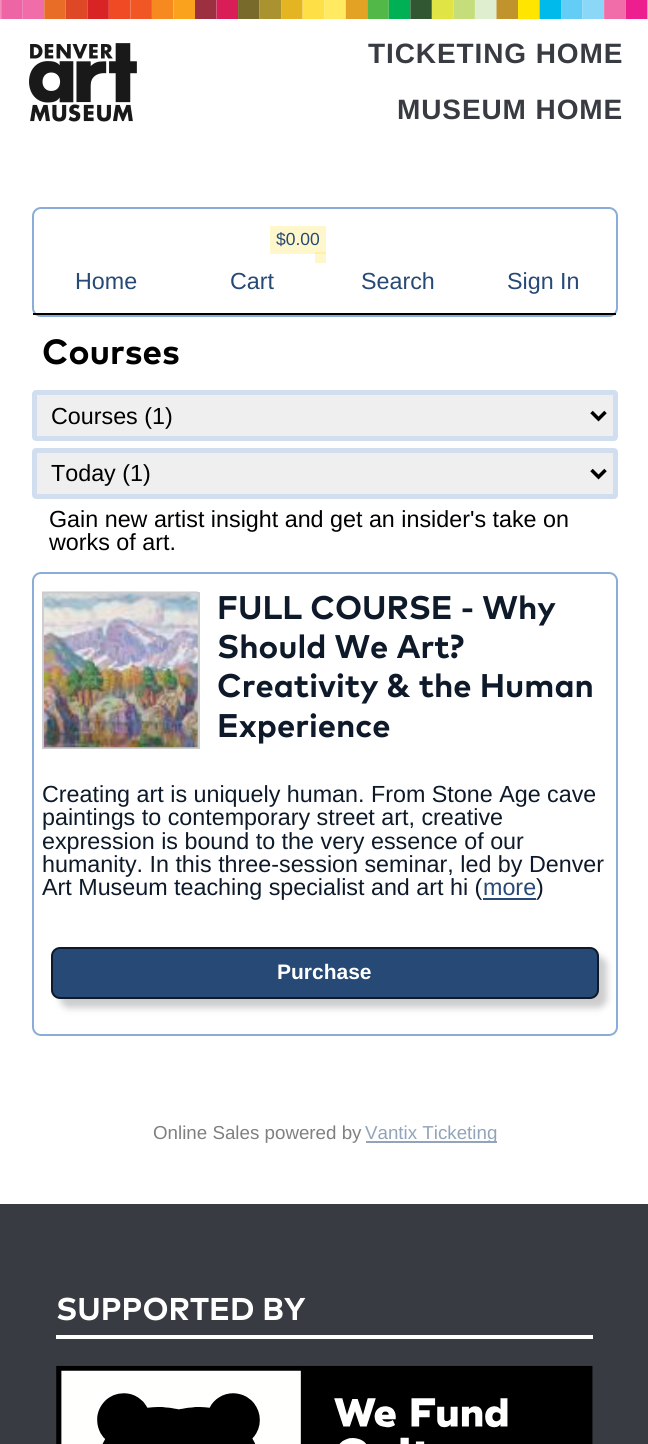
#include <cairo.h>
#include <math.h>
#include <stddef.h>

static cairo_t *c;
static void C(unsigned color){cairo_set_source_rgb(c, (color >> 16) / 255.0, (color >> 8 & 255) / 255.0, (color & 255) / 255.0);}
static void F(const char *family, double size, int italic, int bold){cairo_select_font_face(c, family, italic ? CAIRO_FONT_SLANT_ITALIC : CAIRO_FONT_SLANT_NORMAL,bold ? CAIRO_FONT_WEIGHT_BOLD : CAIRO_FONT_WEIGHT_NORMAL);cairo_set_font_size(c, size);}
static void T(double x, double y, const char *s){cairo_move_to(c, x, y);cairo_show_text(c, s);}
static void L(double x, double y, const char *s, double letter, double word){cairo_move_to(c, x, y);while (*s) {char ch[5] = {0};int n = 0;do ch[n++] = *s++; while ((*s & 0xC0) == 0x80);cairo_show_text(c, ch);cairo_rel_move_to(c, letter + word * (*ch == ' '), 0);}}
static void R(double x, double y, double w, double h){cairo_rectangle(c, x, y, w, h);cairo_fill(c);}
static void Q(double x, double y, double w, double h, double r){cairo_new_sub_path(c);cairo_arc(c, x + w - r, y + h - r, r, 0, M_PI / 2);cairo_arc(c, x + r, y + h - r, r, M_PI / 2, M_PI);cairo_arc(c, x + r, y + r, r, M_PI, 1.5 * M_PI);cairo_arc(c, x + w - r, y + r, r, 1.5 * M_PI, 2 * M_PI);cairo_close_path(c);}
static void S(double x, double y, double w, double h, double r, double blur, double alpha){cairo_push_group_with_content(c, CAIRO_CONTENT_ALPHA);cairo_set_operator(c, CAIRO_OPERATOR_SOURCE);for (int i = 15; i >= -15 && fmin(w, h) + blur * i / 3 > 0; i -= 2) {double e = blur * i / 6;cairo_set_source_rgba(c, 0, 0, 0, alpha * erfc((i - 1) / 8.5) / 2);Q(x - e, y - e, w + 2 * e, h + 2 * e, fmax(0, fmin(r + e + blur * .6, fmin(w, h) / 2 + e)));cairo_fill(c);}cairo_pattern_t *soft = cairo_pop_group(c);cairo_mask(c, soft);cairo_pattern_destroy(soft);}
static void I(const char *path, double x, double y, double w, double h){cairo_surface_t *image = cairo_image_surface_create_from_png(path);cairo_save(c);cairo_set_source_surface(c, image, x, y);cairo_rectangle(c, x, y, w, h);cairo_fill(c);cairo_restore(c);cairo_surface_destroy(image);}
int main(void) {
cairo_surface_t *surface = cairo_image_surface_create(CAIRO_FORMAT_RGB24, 648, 1444);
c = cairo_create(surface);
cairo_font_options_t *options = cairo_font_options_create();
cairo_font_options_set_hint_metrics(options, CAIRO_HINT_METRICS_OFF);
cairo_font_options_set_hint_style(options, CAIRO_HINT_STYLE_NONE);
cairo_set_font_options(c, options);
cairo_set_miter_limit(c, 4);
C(0xffffff);
cairo_paint(c);
C(0xfff7cc);
R(315,254,11,9);
I("1.png",0,0,648,19);
I("2.png",29,43,108,79);
F("Liberation Sans",28,0,1);
C(0x383b41);
L(368,63,"TICKETING HOME",.9,0);
L(397,119,"MUSEUM HOME",.9,0);
Q(33,208,584,108,8);
C(0x8aacd8);
cairo_stroke(c);
F("Liberation Sans",23.3,0,0);
C(0x274975);
T(75,289,"Home");
C(0xfff7cc);
R(270,226,56,28);
C(0xfff1a3);
R(315,252,11,2);
F("Liberation Sans",17.5,0,0);
C(0x274975);
T(276,245,"$0.00");
F("Liberation Sans",23.3,0,0);
T(230,289,"Cart");
T(361,289,"Search");
T(507,289,"Sign In");
C(0x000000);
R(33,313,583,2);
F("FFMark",35,0,0);
T(42,364,"Courses");
C(0xefefef);
Q(34.5,392.5,581,46,1.5);
cairo_fill_preserve(c);
C(0xd1def0);
cairo_set_line_width(c,5);
cairo_stroke(c);
cairo_new_path(c);
cairo_move_to(c,591.5,412);
cairo_line_to(c,598.5,419);
cairo_line_to(c,605.5,412);
C(0x000000);
cairo_set_line_width(c,3.5);
cairo_stroke(c);
F("Liberation Sans",23.3,0,0);
T(51,424,"Courses (1)");
C(0xefefef);
Q(34.5,450.5,581,46,1.5);
cairo_fill_preserve(c);
C(0xd1def0);
cairo_set_line_width(c,5);
cairo_stroke(c);
cairo_new_path(c);
cairo_move_to(c,591.5,470);
cairo_line_to(c,598.5,477);
cairo_line_to(c,605.5,470);
C(0x000000);
cairo_set_line_width(c,3.5);
cairo_stroke(c);
T(51,481,"Today (1)");
T(49,527,"Gain new artist insight and get an insider's take on");
T(49,550,"works of art.");
Q(33,573,584,462,8);
C(0x8aacd8);
cairo_set_line_width(c,2);
cairo_stroke(c);
I("3.png",42,591,156,156);
cairo_rectangle(c,43,593,156,155);
C(0xcccccc);
cairo_stroke(c);
I("4.png",43,593,155,155);
F("FFMark",32.75,0,0);
C(0x0e1a2a);
T(217,619,"FULL COURSE - Why");
T(217,658,"Should We Art?");
T(217,697,"Creativity & the Human");
T(217,737,"Experience");
F("Liberation Sans",23.3,0,0);
T(42,802,"Creating art is uniquely human. From Stone Age cave");
T(42,825,"paintings to contemporary street art, creative");
T(42,849,"expression is bound to the very essence of our");
T(42,872,"humanity. In this three-session seminar, led by Denver");
T(42,895,"Art Museum teaching specialist and art hi (");
C(0x274975);
T(483,895,"more");
R(483,898,53,2);
C(0x0e1a2a);
T(536,895,")");
C(0x000000);
S(60,956,547,52,9,3.5,.2);
C(0x274975);
Q(52,948,546,50,8);
cairo_fill_preserve(c);
C(0x0e1a2a);
cairo_stroke(c);
F("Liberation Sans",21,0,1);
C(0xffffff);
T(277,979,"Purchase");
F("Liberation Sans",18.75,0,0);
C(0x808080);
T(153,1139,"Online Sales powered by");
C(0x93a4ba);
R(366,1141,131,2);
T(365,1139,"Vantix Ticketing");
C(0x383b41);
R(0,1204,648,240);
C(0xffffff);
R(56,1335,537,4);
F("FFMark",31.5,0,0);
T(56,1320,"SUPPORTED BY");
I("5.png",56,1365,537,79);
cairo_surface_write_to_png(surface, "o.png");
cairo_font_options_destroy(options);
cairo_destroy(c);
cairo_surface_destroy(surface);
return 0;
}
